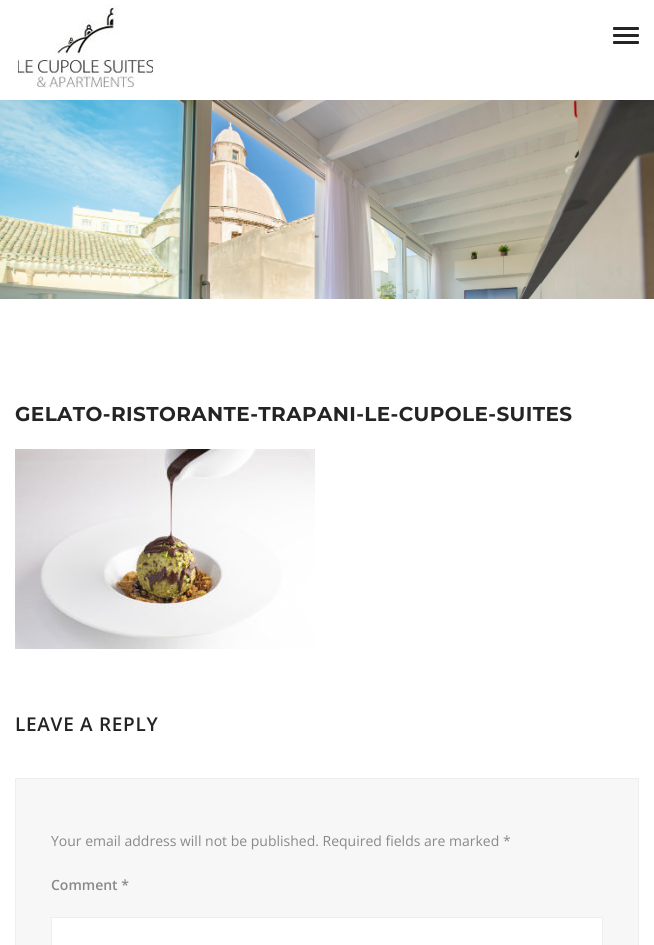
#include <cairo.h>
#include <math.h>
#include <stddef.h>

static cairo_t *c;
static void C(unsigned color){cairo_set_source_rgb(c, (color >> 16) / 255.0, (color >> 8 & 255) / 255.0, (color & 255) / 255.0);}
static void F(const char *family, double size, int italic, int bold){cairo_select_font_face(c, family, italic ? CAIRO_FONT_SLANT_ITALIC : CAIRO_FONT_SLANT_NORMAL,bold ? CAIRO_FONT_WEIGHT_BOLD : CAIRO_FONT_WEIGHT_NORMAL);cairo_set_font_size(c, size);}
static void T(double x, double y, const char *s){cairo_move_to(c, x, y);cairo_show_text(c, s);}
static void L(double x, double y, const char *s, double letter, double word){cairo_move_to(c, x, y);while (*s) {char ch[5] = {0};int n = 0;do ch[n++] = *s++; while ((*s & 0xC0) == 0x80);cairo_show_text(c, ch);cairo_rel_move_to(c, letter + word * (*ch == ' '), 0);}}
static void Q(double x, double y, double w, double h, double r){cairo_new_sub_path(c);cairo_arc(c, x + w - r, y + h - r, r, 0, M_PI / 2);cairo_arc(c, x + r, y + h - r, r, M_PI / 2, M_PI);cairo_arc(c, x + r, y + r, r, M_PI, 1.5 * M_PI);cairo_arc(c, x + w - r, y + r, r, 1.5 * M_PI, 2 * M_PI);cairo_close_path(c);}
static void I(const char *path, double x, double y, double w, double h){cairo_surface_t *image = cairo_image_surface_create_from_png(path);cairo_save(c);cairo_set_source_surface(c, image, x, y);cairo_rectangle(c, x, y, w, h);cairo_fill(c);cairo_restore(c);cairo_surface_destroy(image);}
int main(void) {
cairo_surface_t *surface = cairo_image_surface_create(CAIRO_FORMAT_RGB24, 654, 945);
c = cairo_create(surface);
cairo_font_options_t *options = cairo_font_options_create();
cairo_font_options_set_hint_metrics(options, CAIRO_HINT_METRICS_OFF);
cairo_font_options_set_hint_style(options, CAIRO_HINT_STYLE_NONE);
cairo_set_font_options(c, options);
cairo_set_miter_limit(c, 4);
C(0xffffff);
cairo_paint(c);
I("1.png",15,4,140,84);
C(0x242424);
Q(613,27,26,3,1);
cairo_fill(c);
Q(613,34,26,3,1);
cairo_fill(c);
Q(613,41,26,3,1);
cairo_fill(c);
I("2.png",0,100,654,199);
F("Montserrat",20,0,1);
L(15,421,"GELATO-RISTORANTE-TRAPANI-LE-CUPOLE-SUITES",.4,0);
I("3.png",15,449,300,200);
F("Open Sans SemiBold",19,0,0);
L(15,731,"LEAVE A REPLY",.7,0);
C(0xf7f7f7);
cairo_rectangle(c,15.5,778.5,623,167);
cairo_fill_preserve(c);
C(0xeeeeee);
cairo_set_line_width(c,1);
cairo_stroke(c);
F("Open Sans",14,0,0);
C(0x898989);
T(51,846,"Your email address will not be published. Required fields are marked *");
F("Open Sans SemiBold",14,0,0);
T(51,890,"Comment *");
C(0xffffff);
cairo_rectangle(c,51.5,917.5,551,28);
cairo_fill_preserve(c);
C(0xeeeeee);
cairo_stroke(c);
cairo_surface_write_to_png(surface, "o.png");
cairo_font_options_destroy(options);
cairo_destroy(c);
cairo_surface_destroy(surface);
return 0;
}
